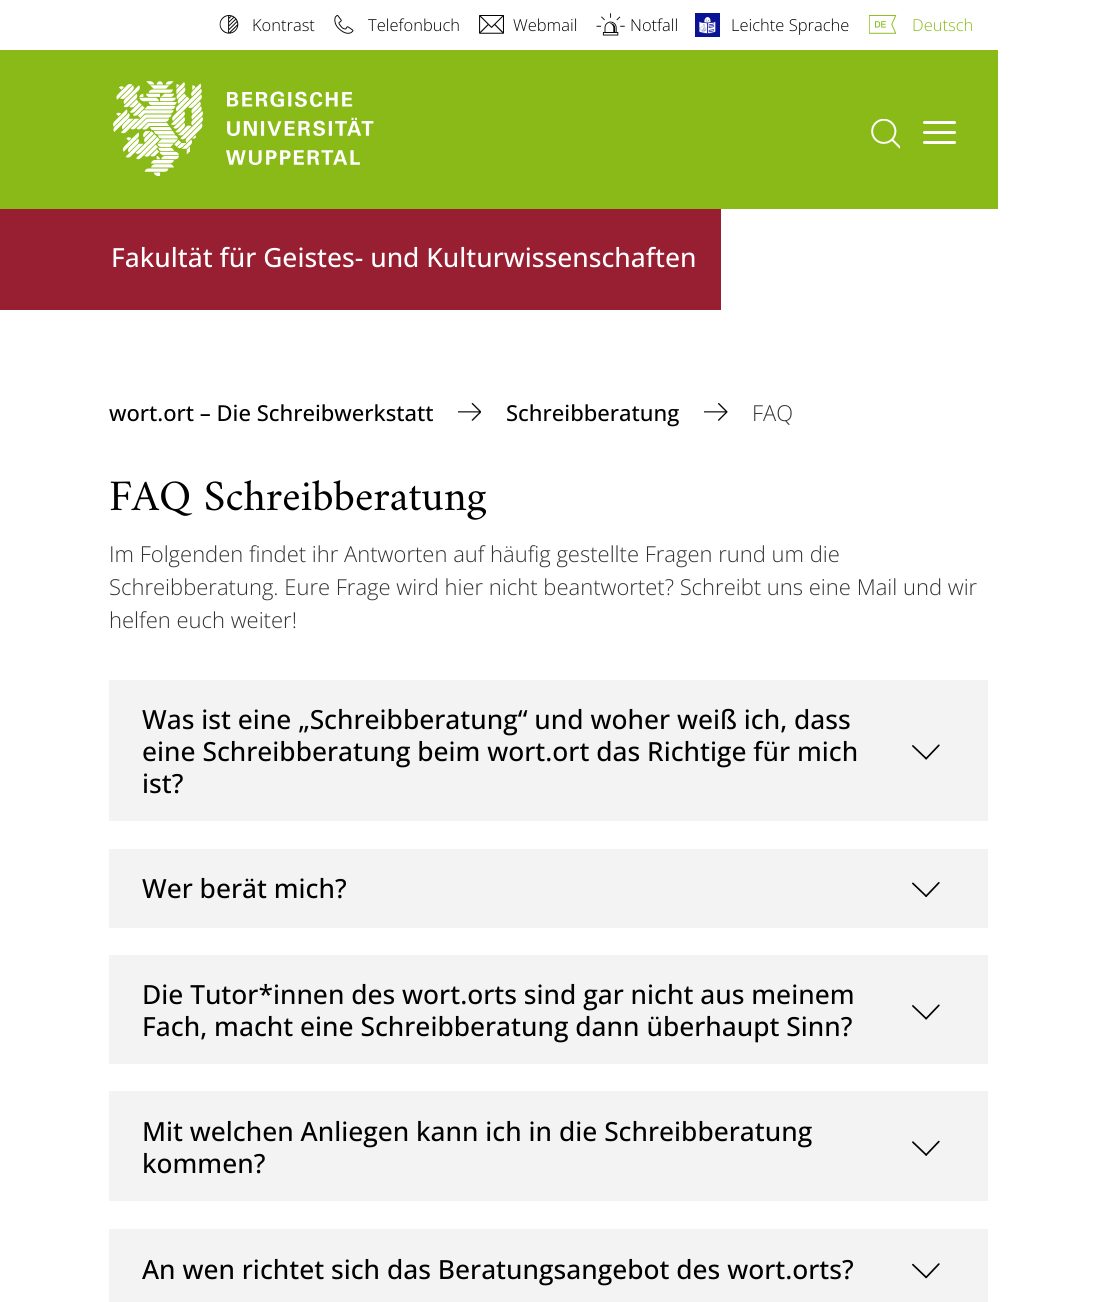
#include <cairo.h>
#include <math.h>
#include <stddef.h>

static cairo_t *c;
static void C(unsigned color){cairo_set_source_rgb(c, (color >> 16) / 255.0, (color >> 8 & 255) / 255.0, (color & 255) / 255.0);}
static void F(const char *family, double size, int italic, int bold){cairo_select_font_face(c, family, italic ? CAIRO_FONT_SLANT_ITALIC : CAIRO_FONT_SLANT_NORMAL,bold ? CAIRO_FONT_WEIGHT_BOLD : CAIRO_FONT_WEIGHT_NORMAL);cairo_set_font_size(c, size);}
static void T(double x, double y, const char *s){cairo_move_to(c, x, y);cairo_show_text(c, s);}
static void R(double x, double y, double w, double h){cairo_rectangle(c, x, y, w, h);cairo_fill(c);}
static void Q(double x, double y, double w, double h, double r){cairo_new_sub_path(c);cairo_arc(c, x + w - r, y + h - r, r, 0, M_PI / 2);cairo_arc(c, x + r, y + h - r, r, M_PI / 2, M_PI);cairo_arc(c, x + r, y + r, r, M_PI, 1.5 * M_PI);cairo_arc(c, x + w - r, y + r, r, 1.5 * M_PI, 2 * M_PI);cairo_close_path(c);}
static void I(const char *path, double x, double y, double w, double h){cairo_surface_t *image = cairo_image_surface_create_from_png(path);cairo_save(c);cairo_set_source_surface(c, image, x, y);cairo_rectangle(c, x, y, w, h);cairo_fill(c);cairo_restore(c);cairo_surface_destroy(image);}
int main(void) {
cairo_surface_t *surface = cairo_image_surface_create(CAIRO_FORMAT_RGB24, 1096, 1302);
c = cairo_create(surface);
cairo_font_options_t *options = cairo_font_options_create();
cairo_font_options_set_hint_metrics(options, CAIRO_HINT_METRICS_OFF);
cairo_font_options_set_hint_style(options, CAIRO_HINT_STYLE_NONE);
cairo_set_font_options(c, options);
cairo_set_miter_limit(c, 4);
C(0xffffff);
cairo_paint(c);
I("1.png",219,15,20,19);
F("Open Sans Light",16.5,0,0);
C(0x000000);
T(252,31,"Kontrast");
I("2.png",334,15,20,19);
T(368,31,"Telefonbuch");
I("3.png",479,15,25,19);
T(513,31,"Webmail");
I("4.png",596,13,29,23);
T(630,31,"Notfall");
I("5.png",695,13,25,24);
T(731,31,"Leichte Sprache");
I("6.png",869,15,28,19);
C(0x89ba17);
T(912,31,"Deutsch");
R(0,50,998,159);
I("7.png",113,81,261,95);
I("8.png",871,119,29,30);
C(0xffffff);
Q(923,121,33,3,1.5);
cairo_fill(c);
Q(923,131,33,3,1.5);
cairo_fill(c);
Q(923,141,33,3,1.5);
cairo_fill(c);
C(0x981e32);
R(0,209,721,101);
F("Open Sans Medium",26.4,0,0);
C(0xffffff);
T(111,267,"Fakultät für Geistes- und Kulturwissenschaften");
F("Open Sans Medium",22,0,0);
C(0x000000);
T(109,421,"wort.ort – Die Schreibwerkstatt");
I("9.png",458,403,23,18);
T(506,421,"Schreibberatung");
I("10.png",704,403,24,18);
F("Open Sans Light",22,0,0);
C(0x323232);
T(752,421,"FAQ");
F("Amiri",44,0,0);
C(0x000000);
T(109,510,"FAQ Schreibberatung");
F("Open Sans Light",22,0,0);
C(0x323232);
T(109,562,"Im Folgenden findet ihr Antworten auf häufig gestellte Fragen rund um die");
T(109,595,"Schreibberatung. Eure Frage wird hier nicht beantwortet? Schreibt uns eine Mail und wir");
T(109,628,"helfen euch weiter!");
C(0xf3f3f3);
R(109,680,879,141);
F("Open Sans Medium",26.4,0,0);
C(0x000000);
T(142,729,"Was ist eine „Schreibberatung“ und woher weiß ich, dass");
T(142,761,"eine Schreibberatung beim wort.ort das Richtige für mich");
I("11.png",912,744,28,16);
T(142,793,"ist?");
C(0xf3f3f3);
R(109,849,879,79);
C(0x000000);
T(142,898,"Wer berät mich?");
I("12.png",912,882,28,15);
C(0xf3f3f3);
R(109,955,879,109);
C(0x000000);
T(142,1004,"Die Tutor*innen des wort.orts sind gar nicht aus meinem");
I("11.png",912,1004,28,16);
T(142,1036,"Fach, macht eine Schreibberatung dann überhaupt Sinn?");
C(0xf3f3f3);
R(109,1091,879,110);
C(0x000000);
T(142,1141,"Mit welchen Anliegen kann ich in die Schreibberatung");
I("13.png",912,1140,28,16);
T(142,1173,"kommen?");
C(0xf3f3f3);
R(109,1229,879,73);
C(0x000000);
T(142,1279,"An wen richtet sich das Beratungsangebot des wort.orts?");
I("14.png",912,1263,28,16);
cairo_surface_write_to_png(surface, "o.png");
cairo_font_options_destroy(options);
cairo_destroy(c);
cairo_surface_destroy(surface);
return 0;
}
